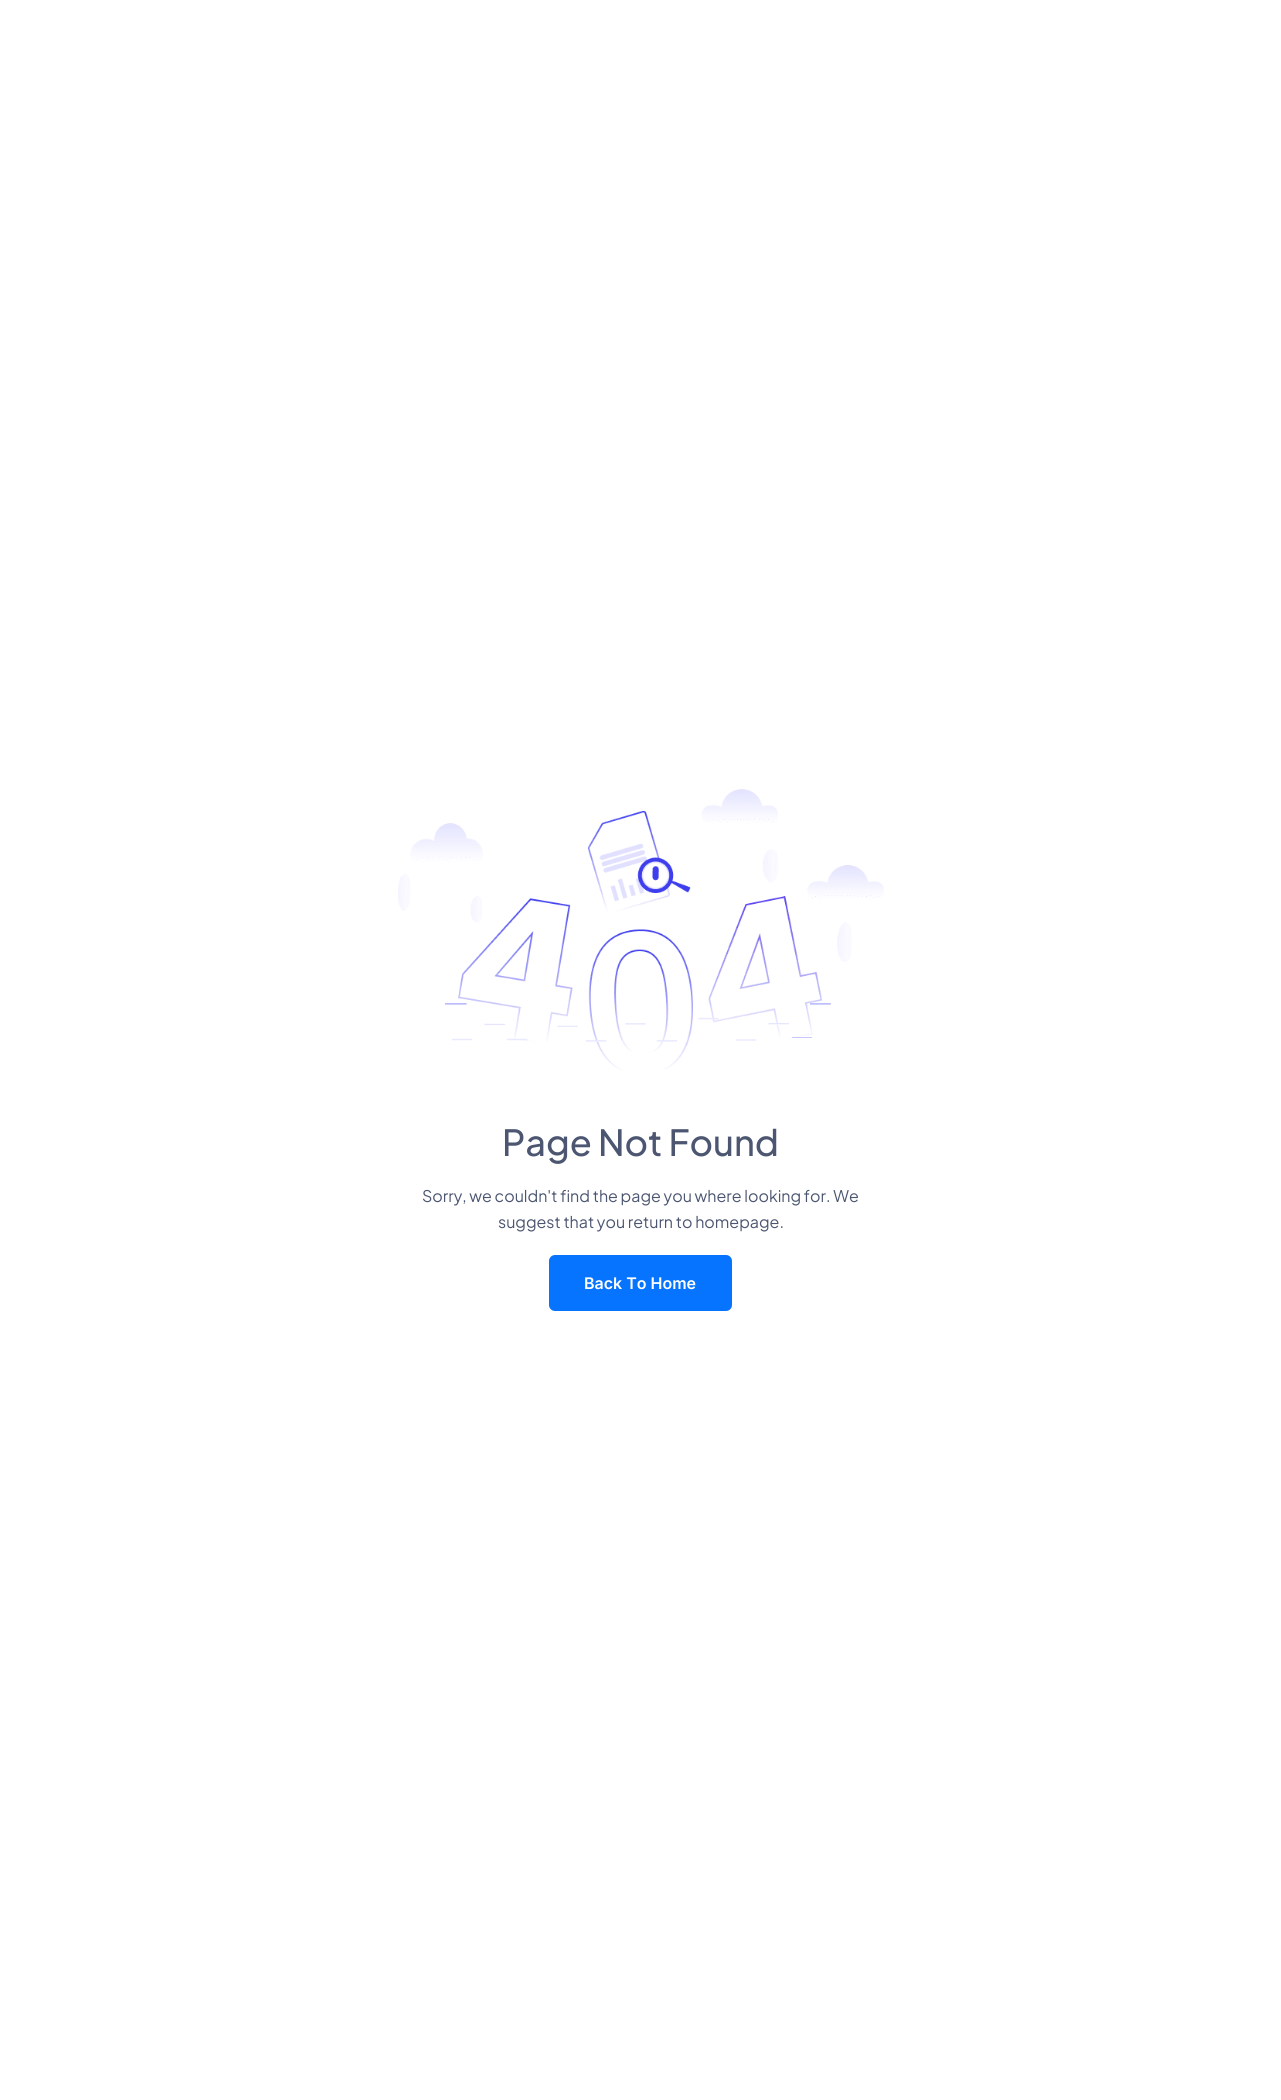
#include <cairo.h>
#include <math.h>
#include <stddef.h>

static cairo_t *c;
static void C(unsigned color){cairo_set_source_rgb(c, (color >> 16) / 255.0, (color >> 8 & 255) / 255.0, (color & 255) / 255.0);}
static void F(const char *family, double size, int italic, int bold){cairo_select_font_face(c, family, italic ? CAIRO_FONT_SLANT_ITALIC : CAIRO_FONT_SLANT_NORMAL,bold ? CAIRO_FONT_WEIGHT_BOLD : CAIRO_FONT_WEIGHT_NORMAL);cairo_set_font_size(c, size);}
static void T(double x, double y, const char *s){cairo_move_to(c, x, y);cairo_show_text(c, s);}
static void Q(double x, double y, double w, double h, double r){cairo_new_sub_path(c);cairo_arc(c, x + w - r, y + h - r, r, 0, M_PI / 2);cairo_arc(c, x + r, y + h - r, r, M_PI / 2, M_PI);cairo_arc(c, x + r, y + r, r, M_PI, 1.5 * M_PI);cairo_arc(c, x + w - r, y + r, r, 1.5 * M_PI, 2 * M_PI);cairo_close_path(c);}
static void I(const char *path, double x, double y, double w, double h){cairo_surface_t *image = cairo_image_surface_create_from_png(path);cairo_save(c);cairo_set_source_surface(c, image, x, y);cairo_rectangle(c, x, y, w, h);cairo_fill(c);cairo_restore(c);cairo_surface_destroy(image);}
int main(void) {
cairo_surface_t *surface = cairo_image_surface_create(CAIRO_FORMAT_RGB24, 1281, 2100);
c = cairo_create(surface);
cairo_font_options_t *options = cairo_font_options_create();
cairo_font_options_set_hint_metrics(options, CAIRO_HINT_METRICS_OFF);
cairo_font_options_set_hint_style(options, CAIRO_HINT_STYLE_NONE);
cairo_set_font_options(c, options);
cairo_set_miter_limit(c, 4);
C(0xffffff);
cairo_paint(c);
I("1.png",398,789,486,281);
F("Plus Jakarta Sans Medium",36,0,0);
C(0x4c5671);
T(502,1156,"Page Not Found");
F("Plus Jakarta Sans",16,0,0);
T(422,1202,"Sorry, we couldn't find the page you where looking for. We");
T(498,1228,"suggest that you return to homepage.");
C(0x0774ff);
Q(549,1255,183,56,6);
cairo_fill(c);
F("Inter SemiBold",16,0,0);
C(0xffffff);
T(584,1289,"Back To Home");
cairo_surface_write_to_png(surface, "o.png");
cairo_font_options_destroy(options);
cairo_destroy(c);
cairo_surface_destroy(surface);
return 0;
}
